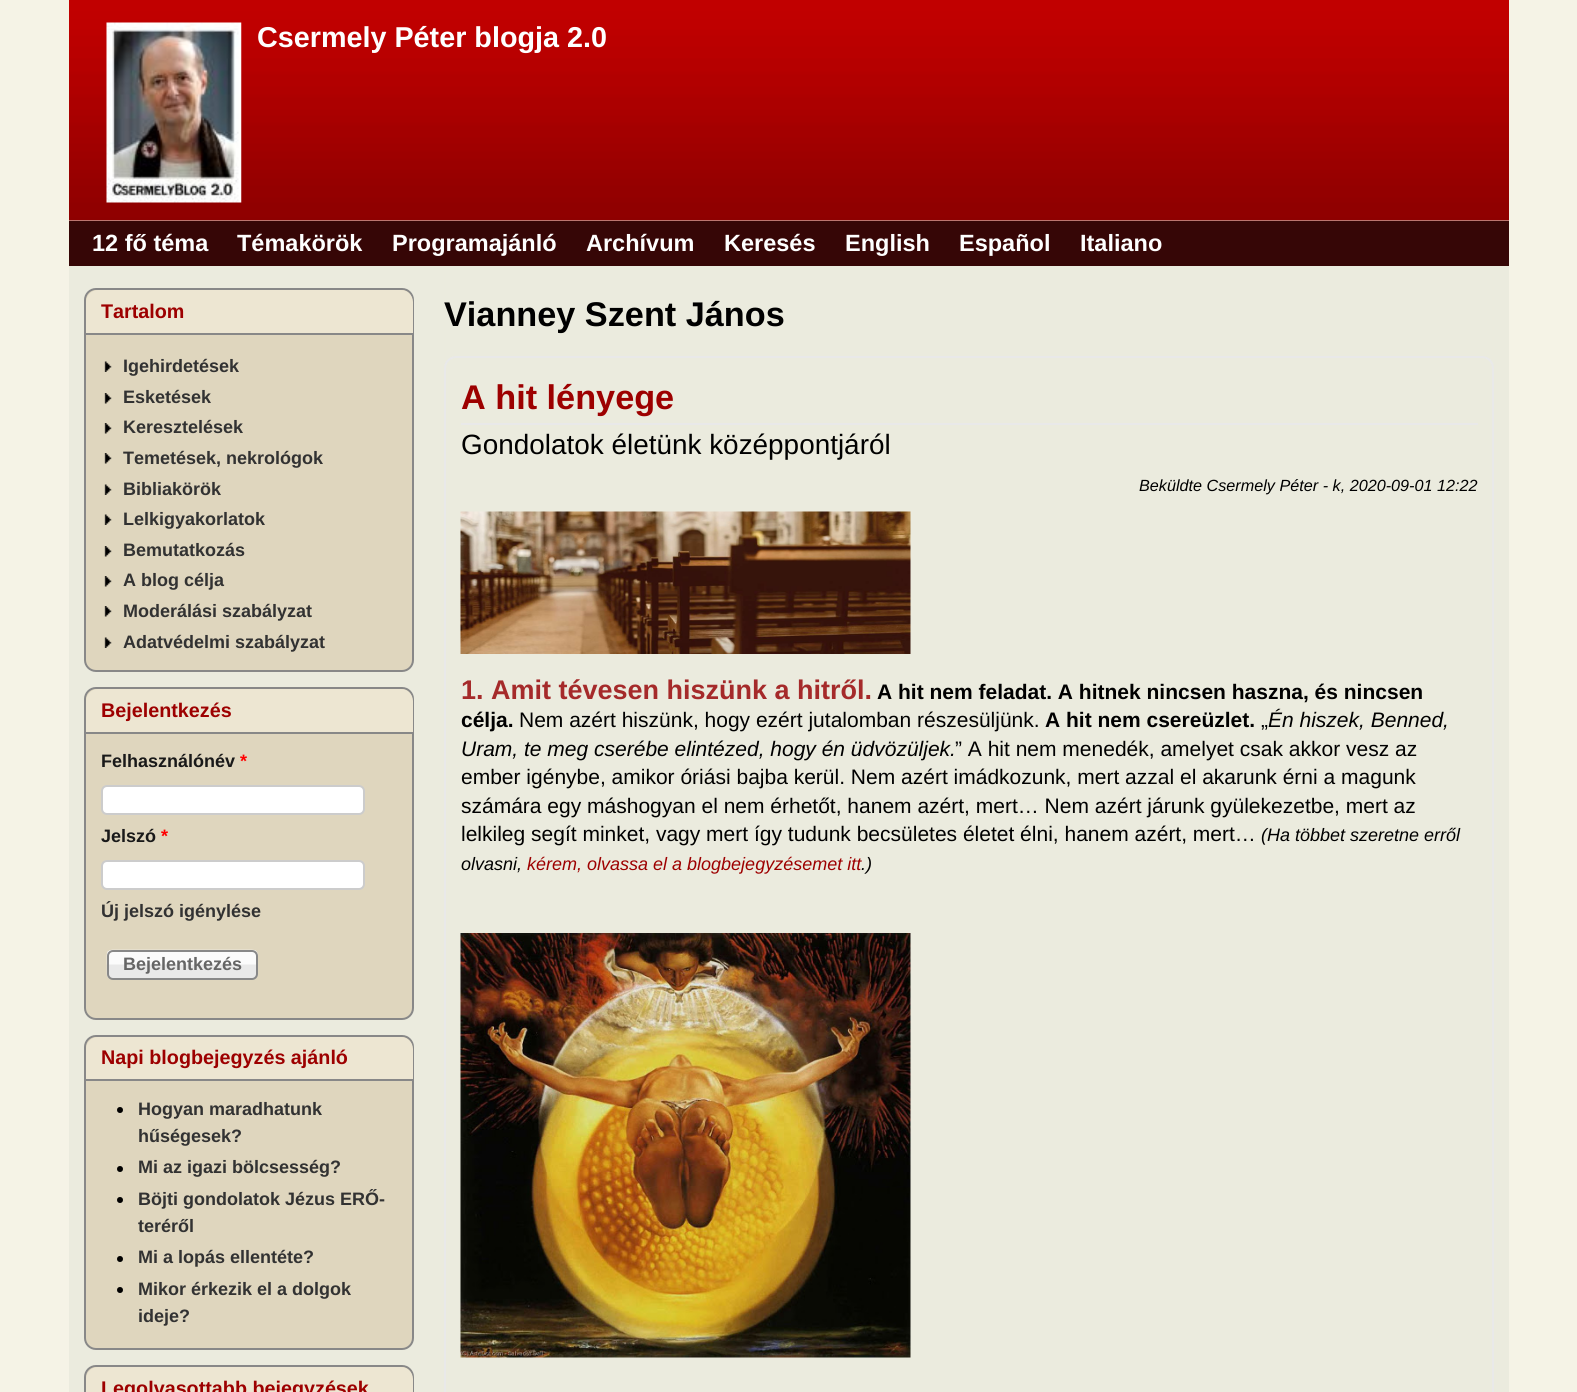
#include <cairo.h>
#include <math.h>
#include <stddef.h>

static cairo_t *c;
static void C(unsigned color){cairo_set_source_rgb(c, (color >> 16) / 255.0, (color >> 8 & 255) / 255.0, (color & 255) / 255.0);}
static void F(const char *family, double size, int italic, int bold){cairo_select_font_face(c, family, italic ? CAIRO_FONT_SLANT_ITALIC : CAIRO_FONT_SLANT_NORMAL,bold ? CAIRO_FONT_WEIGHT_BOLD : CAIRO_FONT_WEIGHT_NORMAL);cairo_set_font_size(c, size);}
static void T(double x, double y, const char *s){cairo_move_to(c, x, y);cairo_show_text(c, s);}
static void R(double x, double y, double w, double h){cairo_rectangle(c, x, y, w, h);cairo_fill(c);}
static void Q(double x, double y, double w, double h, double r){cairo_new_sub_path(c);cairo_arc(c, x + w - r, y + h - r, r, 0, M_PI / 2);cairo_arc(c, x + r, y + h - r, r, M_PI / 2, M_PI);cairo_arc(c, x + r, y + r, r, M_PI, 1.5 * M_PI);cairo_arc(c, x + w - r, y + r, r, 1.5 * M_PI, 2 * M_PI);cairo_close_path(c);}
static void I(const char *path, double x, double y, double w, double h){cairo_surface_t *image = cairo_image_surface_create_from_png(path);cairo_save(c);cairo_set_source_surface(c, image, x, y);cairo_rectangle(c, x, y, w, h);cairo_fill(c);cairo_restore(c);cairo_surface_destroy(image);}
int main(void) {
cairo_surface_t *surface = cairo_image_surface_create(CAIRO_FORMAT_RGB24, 1577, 1392);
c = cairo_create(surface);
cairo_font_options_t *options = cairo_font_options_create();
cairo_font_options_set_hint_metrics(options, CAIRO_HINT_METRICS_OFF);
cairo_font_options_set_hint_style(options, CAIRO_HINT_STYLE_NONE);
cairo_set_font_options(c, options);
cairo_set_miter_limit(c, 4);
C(0xf5f3e6);
cairo_paint(c);
C(0xebebde);
R(69,220,1440,1172);
I("1.png",69,0,1440,221);
I("2.png",106,22,136,181);
F("Liberation Sans",28.75,0,1);
C(0xfeffff);
T(257,47,"Csermely Péter blogja 2.0");
C(0x360606);
R(69,221,1440,45);
F("Liberation Sans",23.5,0,1);
C(0xfeffff);
T(92,251,"12 fő téma");
T(237,251,"Témakörök");
T(392,251,"Programajánló");
T(586,251,"Archívum");
T(724,251,"Keresés");
T(845,251,"English");
T(959,251,"Español");
T(1080,251,"Italiano");
C(0xdfd6be);
Q(85,289,328,382,11);
cairo_fill_preserve(c);
C(0x888888);
cairo_stroke(c);
C(0xede6d2);
cairo_new_path(c);
cairo_move_to(c,98,290);
cairo_line_to(c,401,290);
cairo_curve_to(c,407.5,290,413,295.5,413,302);
cairo_line_to(c,413,335);
cairo_line_to(c,86,335);
cairo_line_to(c,86,302);
cairo_curve_to(c,86,295.5,91.5,290,98,290);
cairo_close_path(c);
cairo_fill(c);
C(0x888888);
R(86,333,327,2);
F("Liberation Sans",19.75,0,1);
C(0x9d0000);
T(101,318,"Tartalom");
I("3.png",104,361,8,11);
F("Liberation Sans",18,0,1);
C(0x323232);
T(123,372,"Igehirdetések");
I("4.png",104,393,8,11);
T(123,403,"Esketések");
I("4.png",104,423,8,11);
T(123,433,"Keresztelések");
I("4.png",104,453,8,11);
T(123,464,"Temetések, nekrológok");
I("3.png",104,484,8,11);
T(123,495,"Bibliakörök");
I("3.png",104,514,8,11);
T(123,525,"Lelkigyakorlatok");
I("4.png",104,546,8,11);
T(123,556,"Bemutatkozás");
I("4.png",104,576,8,11);
T(123,586,"A blog célja");
I("4.png",104,606,8,11);
T(123,617,"Moderálási szabályzat");
I("3.png",104,637,8,11);
T(123,648,"Adatvédelmi szabályzat");
C(0xdfd6be);
Q(85,688,328,331,11);
cairo_fill_preserve(c);
C(0x888888);
cairo_stroke(c);
C(0xede6d2);
cairo_new_path(c);
cairo_move_to(c,98,689);
cairo_line_to(c,401,689);
cairo_curve_to(c,407.5,689,413,694.5,413,701);
cairo_line_to(c,413,734);
cairo_line_to(c,86,734);
cairo_line_to(c,86,701);
cairo_curve_to(c,86,694.5,91.5,689,98,689);
cairo_close_path(c);
cairo_fill(c);
C(0x888888);
R(86,732,327,2);
F("Liberation Sans",19.75,0,1);
C(0x9d0000);
T(101,717,"Bejelentkezés");
F("Liberation Sans",18,0,1);
C(0x191919);
T(101,767,"Felhasználónév");
C(0xff0000);
T(240,767,"*");
C(0xffffff);
Q(102,786,262,28,5);
cairo_fill_preserve(c);
C(0xcccccc);
cairo_stroke(c);
C(0x191919);
T(101,842,"Jelszó");
C(0xff0000);
T(161,842,"*");
C(0xffffff);
Q(102,861,262,28,5);
cairo_fill_preserve(c);
C(0xcccccc);
cairo_stroke(c);
C(0x323232);
T(101,917,"Új jelszó igénylése");
I("5.png",106,949,152,31);
Q(108,951,149,28,5);
C(0x888888);
cairo_stroke(c);
C(0x666666);
T(123,970,"Bejelentkezés");
C(0xdfd6be);
Q(85,1036,328,313,11);
cairo_fill_preserve(c);
C(0x888888);
cairo_stroke(c);
C(0xede6d2);
cairo_new_path(c);
cairo_move_to(c,98,1037);
cairo_line_to(c,401,1037);
cairo_curve_to(c,407.5,1037,413,1042.5,413,1049);
cairo_line_to(c,413,1080);
cairo_line_to(c,86,1080);
cairo_line_to(c,86,1049);
cairo_curve_to(c,86,1042.5,91.5,1037,98,1037);
cairo_close_path(c);
cairo_fill(c);
C(0x888888);
R(86,1079,327,2);
F("Liberation Sans",19.75,0,1);
C(0x9d0000);
T(101,1064,"Napi blogbejegyzés ajánló");
C(0x000000);
cairo_new_path(c);
cairo_arc(c,120,1110,3,0,2 * M_PI);
cairo_fill(c);
F("Liberation Sans",18,0,1);
C(0x323232);
T(138,1115,"Hogyan maradhatunk");
T(138,1142,"hűségesek?");
C(0x000000);
cairo_new_path(c);
cairo_arc(c,120,1169,3,0,2 * M_PI);
cairo_fill(c);
C(0x323232);
T(138,1173,"Mi az igazi bölcsesség?");
C(0x000000);
cairo_new_path(c);
cairo_arc(c,120,1200,3,0,2 * M_PI);
cairo_fill(c);
C(0x323232);
T(138,1205,"Böjti gondolatok Jézus ERŐ-");
T(138,1232,"teréről");
C(0x000000);
cairo_new_path(c);
cairo_arc(c,120,1259,3,0,2 * M_PI);
cairo_fill(c);
C(0x323232);
T(138,1263,"Mi a lopás ellentéte?");
C(0x000000);
cairo_new_path(c);
cairo_arc(c,120,1290,3,0,2 * M_PI);
cairo_fill(c);
C(0x323232);
T(138,1295,"Mikor érkezik el a dolgok");
T(138,1322,"ideje?");
C(0xdfd6be);
Q(85,1366,328,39,11);
cairo_fill_preserve(c);
C(0x888888);
cairo_stroke(c);
C(0xede6d2);
cairo_new_path(c);
cairo_move_to(c,98,1367);
cairo_line_to(c,401,1367);
cairo_curve_to(c,407.5,1367,413,1372.5,413,1379);
cairo_line_to(c,413,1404);
cairo_line_to(c,86,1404);
cairo_line_to(c,86,1379);
cairo_curve_to(c,86,1372.5,91.5,1367,98,1367);
cairo_close_path(c);
cairo_fill(c);
F("Liberation Sans",19.75,0,1);
C(0x9d0000);
T(101,1395,"Legolvasottabb bejegyzések");
F("Liberation Sans",34.25,0,1);
C(0x000000);
T(444,326,"Vianney Szent János");
Q(445,357,1048,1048,11);
C(0xe9e9e9);
cairo_stroke(c);
R(461,423,1017,2);
C(0x9d0000);
T(461,409,"A hit lényege");
F("Liberation Sans",27.9,0,0);
C(0x000000);
T(461,454,"Gondolatok életünk középpontjáról");
F("Liberation Sans",16.2,1,0);
T(1139,491,"Beküldte Csermely Péter - k, 2020-09-01 12:22");
I("6.png",460,511,451,143);
F("Liberation Sans",27,0,1);
C(0xa52a2a);
T(461,699,"1. Amit tévesen hiszünk a hitről.");
F("Liberation Sans",21,0,1);
C(0x000000);
T(877,699,"A hit nem feladat. A hitnek nincsen haszna, és nincsen");
T(461,727,"célja.");
F("Liberation Sans",21,0,0);
T(519,727,"Nem azért hiszünk, hogy ezért jutalomban részesüljünk.");
F("Liberation Sans",21,0,1);
T(1045,727,"A hit nem csereüzlet.");
F("Liberation Sans",21,0,0);
T(1261,727,"„");
F("Liberation Sans",21,1,0);
T(1268,727,"Én hiszek, Benned,");
T(461,756,"Uram, te meg cserébe elintézed, hogy én üdvözüljek.");
F("Liberation Sans",21,0,0);
T(955,756,"” A hit nem menedék, amelyet csak akkor vesz az");
T(461,784,"ember igénybe, amikor óriási bajba kerül. Nem azért imádkozunk, mert azzal el akarunk érni a magunk");
T(461,813,"számára egy máshogyan el nem érhetőt, hanem azért, mert… Nem azért járunk gyülekezetbe, mert az");
T(461,841,"lelkileg segít minket, vagy mert így tudunk becsületes életet élni, hanem azért, mert…");
F("Liberation Sans",18,1,0);
T(1261,841,"(Ha többet szeretne erről");
T(461,870,"olvasni,");
C(0x9d0000);
T(527,870,"kérem, olvassa el a blogbejegyzésemet itt");
C(0x000000);
T(861,870,".)");
I("7.png",460,933,451,425);
cairo_surface_write_to_png(surface, "o.png");
cairo_font_options_destroy(options);
cairo_destroy(c);
cairo_surface_destroy(surface);
return 0;
}
